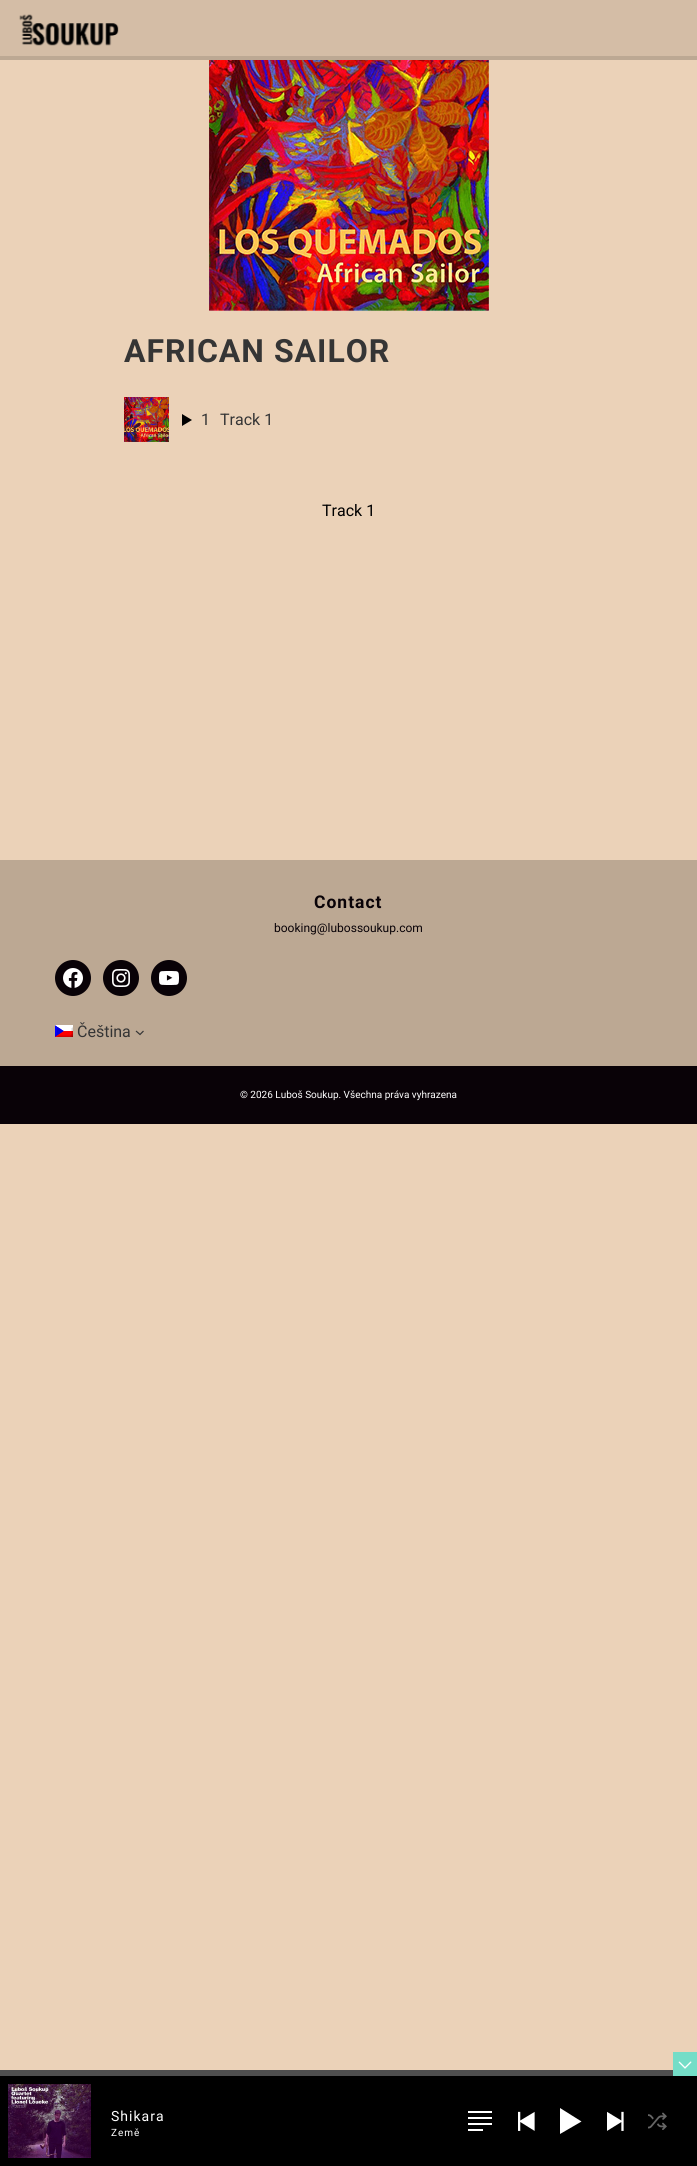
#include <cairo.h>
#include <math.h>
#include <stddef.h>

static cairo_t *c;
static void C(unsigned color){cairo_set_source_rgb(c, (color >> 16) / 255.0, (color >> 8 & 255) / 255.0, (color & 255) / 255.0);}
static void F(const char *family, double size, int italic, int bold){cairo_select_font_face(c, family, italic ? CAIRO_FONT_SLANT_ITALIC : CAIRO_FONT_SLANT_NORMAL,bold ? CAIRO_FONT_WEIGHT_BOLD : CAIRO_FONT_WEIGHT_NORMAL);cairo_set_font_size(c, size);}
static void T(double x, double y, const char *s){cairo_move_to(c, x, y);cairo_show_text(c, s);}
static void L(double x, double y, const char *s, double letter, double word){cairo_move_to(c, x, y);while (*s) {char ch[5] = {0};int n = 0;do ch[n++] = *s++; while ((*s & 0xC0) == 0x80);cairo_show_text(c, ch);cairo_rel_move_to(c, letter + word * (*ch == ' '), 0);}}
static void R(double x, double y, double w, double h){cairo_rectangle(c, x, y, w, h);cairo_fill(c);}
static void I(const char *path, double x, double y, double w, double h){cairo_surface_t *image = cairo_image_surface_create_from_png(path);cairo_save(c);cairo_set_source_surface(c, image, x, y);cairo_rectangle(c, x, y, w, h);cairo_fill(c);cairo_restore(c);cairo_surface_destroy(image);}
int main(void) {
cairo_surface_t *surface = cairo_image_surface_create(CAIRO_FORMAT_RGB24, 697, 2166);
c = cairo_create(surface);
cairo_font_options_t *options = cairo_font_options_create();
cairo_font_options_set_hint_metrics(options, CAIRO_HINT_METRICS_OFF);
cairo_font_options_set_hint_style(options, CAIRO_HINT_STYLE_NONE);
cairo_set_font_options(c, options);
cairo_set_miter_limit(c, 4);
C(0xebd2b8);
cairo_paint(c);
C(0xd4bda6);
R(0,0,697,56);
C(0xbca893);
R(0,56,697,4);
I("1.png",19,14,100,32);
I("2.png",209,60,280,251);
F("Roboto",32,0,1);
C(0x353535);
L(124,362,"AFRICAN SAILOR",1,0);
I("3.png",124,397,45,45);
C(0x000000);
cairo_new_path(c);
cairo_move_to(c,182,414);
cairo_line_to(c,192,420);
cairo_line_to(c,182,426);
cairo_close_path(c);
cairo_fill(c);
F("Roboto",16,0,0);
C(0x353535);
T(201,425,"1");
T(220,425,"Track 1");
C(0x000000);
T(322,516,"Track 1");
C(0xbca893);
R(0,860,697,206);
F("Roboto",17.5,0,1);
C(0x090207);
L(314,908,"Contact",1,0);
F("Roboto",12,0,0);
T(274,932,"booking@lubossoukup.com");
cairo_new_path(c);
cairo_arc(c,73,978,18,0,2 * M_PI);
cairo_fill(c);
I("4.png",63,968,20,20);
cairo_arc(c,121,978,18,0,2 * M_PI);
cairo_fill(c);
I("5.png",112,969,18,18);
cairo_arc(c,169,978,18,0,2 * M_PI);
cairo_fill(c);
I("6.png",159,971,20,14);
I("7.png",55,1025,18,12);
F("Roboto",16,0,0);
C(0x353535);
T(77,1037,"Čeština");
cairo_new_path(c);
cairo_move_to(c,136,1031);
cairo_line_to(c,140,1034.5);
cairo_line_to(c,143.5,1031);
cairo_set_line_width(c,1.2);
cairo_stroke(c);
C(0x090207);
R(0,1066,697,58);
F("Roboto",10,0,0);
C(0xffffff);
T(240,1098,"© 2026 Luboš Soukup. Všechna práva vyhrazena");
C(0x000000);
R(0,2076,697,90);
C(0x4f4f4f);
R(0,2070,673,6);
C(0x74ddc7);
R(673,2052,24,24);
I("8.png",678,2061,14,8);
I("9.png",8,2084,83,74);
F("Roboto",14,0,0);
C(0xffffff);
L(111,2121,"Shikara",1,0);
F("Roboto",10,0,0);
L(111,2136,"Země",1,0);
I("10.png",468,2111,24,20);
I("11.png",518,2111,17,20);
cairo_new_path(c);
cairo_move_to(c,560,2108);
cairo_line_to(c,581.5,2121.5);
cairo_line_to(c,560,2134);
cairo_close_path(c);
cairo_fill(c);
I("12.png",607,2111,17,20);
I("13.png",648,2112,19,18);
cairo_surface_write_to_png(surface, "o.png");
cairo_font_options_destroy(options);
cairo_destroy(c);
cairo_surface_destroy(surface);
return 0;
}
